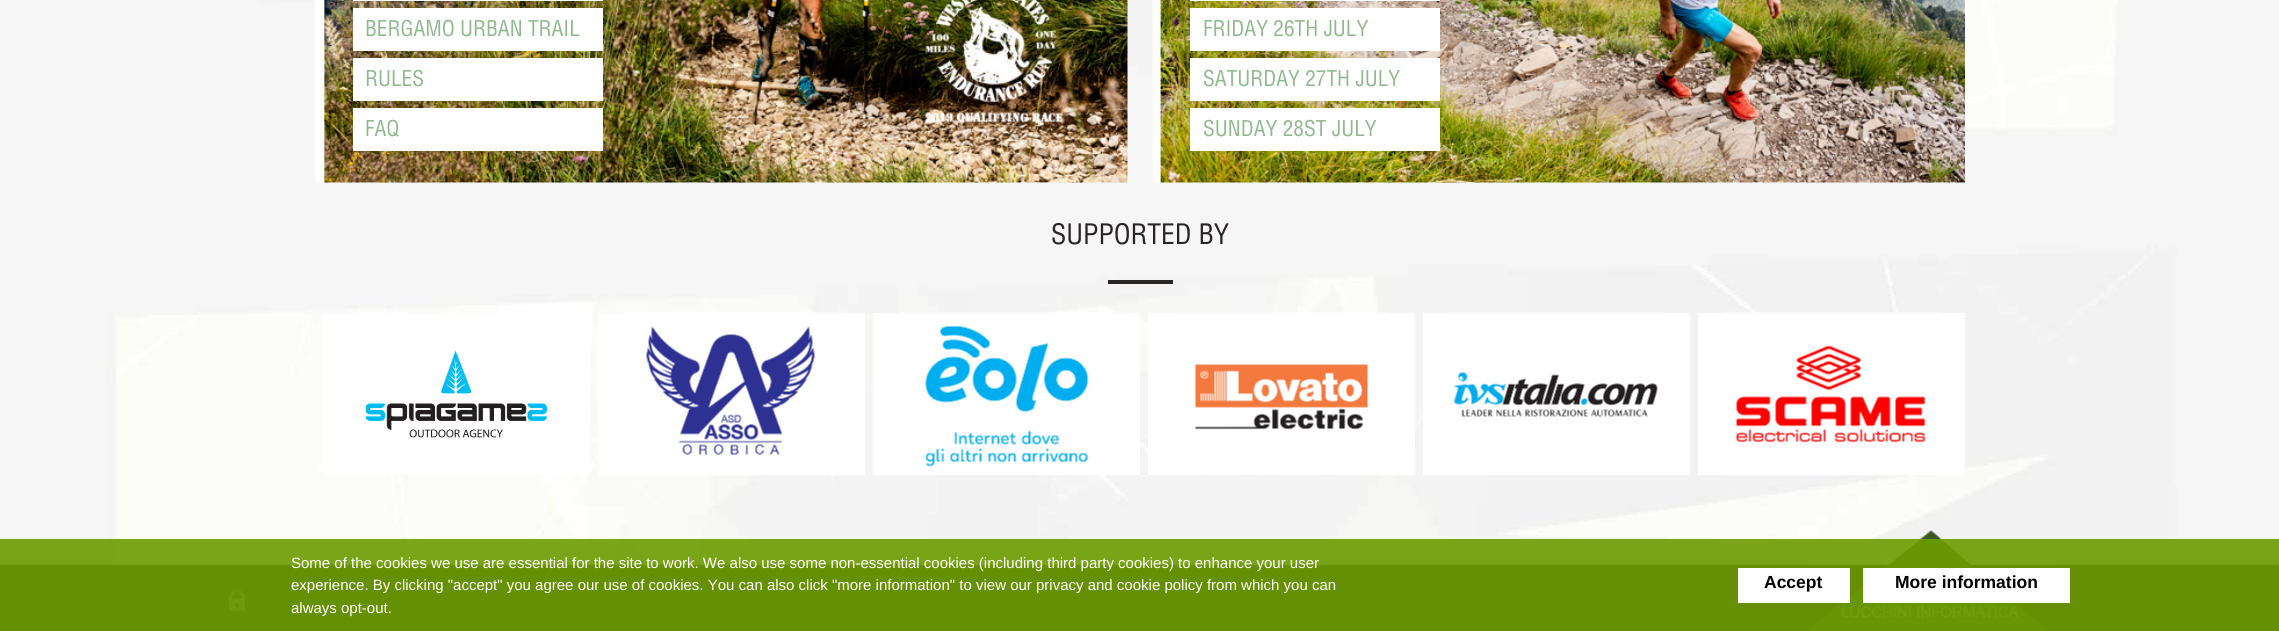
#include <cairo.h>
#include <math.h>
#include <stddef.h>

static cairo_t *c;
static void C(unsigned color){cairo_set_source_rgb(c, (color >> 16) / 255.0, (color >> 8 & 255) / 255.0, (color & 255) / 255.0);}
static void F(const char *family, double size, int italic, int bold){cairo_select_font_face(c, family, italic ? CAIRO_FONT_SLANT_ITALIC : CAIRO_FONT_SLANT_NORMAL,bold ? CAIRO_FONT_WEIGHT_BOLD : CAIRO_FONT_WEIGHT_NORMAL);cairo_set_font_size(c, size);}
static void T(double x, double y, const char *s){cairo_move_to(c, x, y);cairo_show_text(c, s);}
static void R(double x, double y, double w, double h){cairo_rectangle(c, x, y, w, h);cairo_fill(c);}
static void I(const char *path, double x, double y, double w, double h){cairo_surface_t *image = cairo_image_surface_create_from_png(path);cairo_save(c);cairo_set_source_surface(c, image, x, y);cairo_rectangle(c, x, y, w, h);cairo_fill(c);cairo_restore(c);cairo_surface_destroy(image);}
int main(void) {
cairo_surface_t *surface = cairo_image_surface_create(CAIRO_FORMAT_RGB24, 2279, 631);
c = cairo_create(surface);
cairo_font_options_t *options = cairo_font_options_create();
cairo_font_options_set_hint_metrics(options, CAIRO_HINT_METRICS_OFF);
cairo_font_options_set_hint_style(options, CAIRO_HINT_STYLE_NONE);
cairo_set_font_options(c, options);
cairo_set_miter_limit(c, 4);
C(0xffffff);
cairo_paint(c);
I("1.png",0,0,2279,566);
I("2.png",315,0,813,183);
C(0xffffff);
R(353,0,250,1);
R(353,8,250,43);
F("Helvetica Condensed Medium",21.25,0,0);
C(0x90b98e);
T(365,36,"BERGAMO URBAN TRAIL");
C(0xffffff);
R(353,58,250,43);
C(0x90b98e);
T(365,86,"RULES");
C(0xffffff);
R(353,108,250,43);
C(0x90b98e);
T(365,136,"FAQ");
I("3.png",1152,0,813,183);
C(0xffffff);
R(1190,0,250,1);
R(1190,8,250,43);
C(0x90b98e);
T(1203,36,"FRIDAY 26TH JULY");
C(0xffffff);
R(1190,58,250,43);
C(0x90b98e);
T(1203,86,"SATURDAY 27TH JULY");
C(0xffffff);
R(1190,108,250,43);
C(0x90b98e);
T(1203,136,"SUNDAY 28ST JULY");
C(0x292524);
R(1108,280,65,4);
F("Helvetica Condensed Medium",27.5,0,0);
C(0x292525);
T(1051,244,"SUPPORTED BY");
C(0xffffff);
R(323,313,267,162);
I("4.png",365,350,182,88);
R(598,313,267,162);
I("5.png",625,312,213,143);
R(873,313,267,162);
I("6.png",900,312,197,155);
R(1148,313,267,162);
I("7.png",1174,312,214,118);
R(1423,313,267,162);
I("8.png",1449,312,215,105);
R(1698,313,267,162);
I("9.png",1724,312,215,164);
I("10.png",0,564,2279,67);
I("11.png",1807,530,246,101);
I("12.png",228,589,18,23);
cairo_set_source_rgba(c,0.427,0.608,0,0.9);
R(0,539,2279,92);
F("Liberation Sans",15,0,0);
C(0xffffff);
T(291,568,"Some of the cookies we use are essential for the site to work. We also use some non-essential cookies (including third party cookies) to enhance your user");
T(291,590,"experience. By clicking \"accept\" you agree our use of cookies. You can also click \"more information\" to view our privacy and cookie policy from which you can");
T(291,613,"always opt-out.");
R(1738,568,112,35);
F("Liberation Sans",17.5,0,1);
C(0x000000);
T(1764,588,"Accept");
C(0xffffff);
R(1863,568,207,35);
C(0x000000);
T(1895,588,"More information");
cairo_surface_write_to_png(surface, "o.png");
cairo_font_options_destroy(options);
cairo_destroy(c);
cairo_surface_destroy(surface);
return 0;
}
